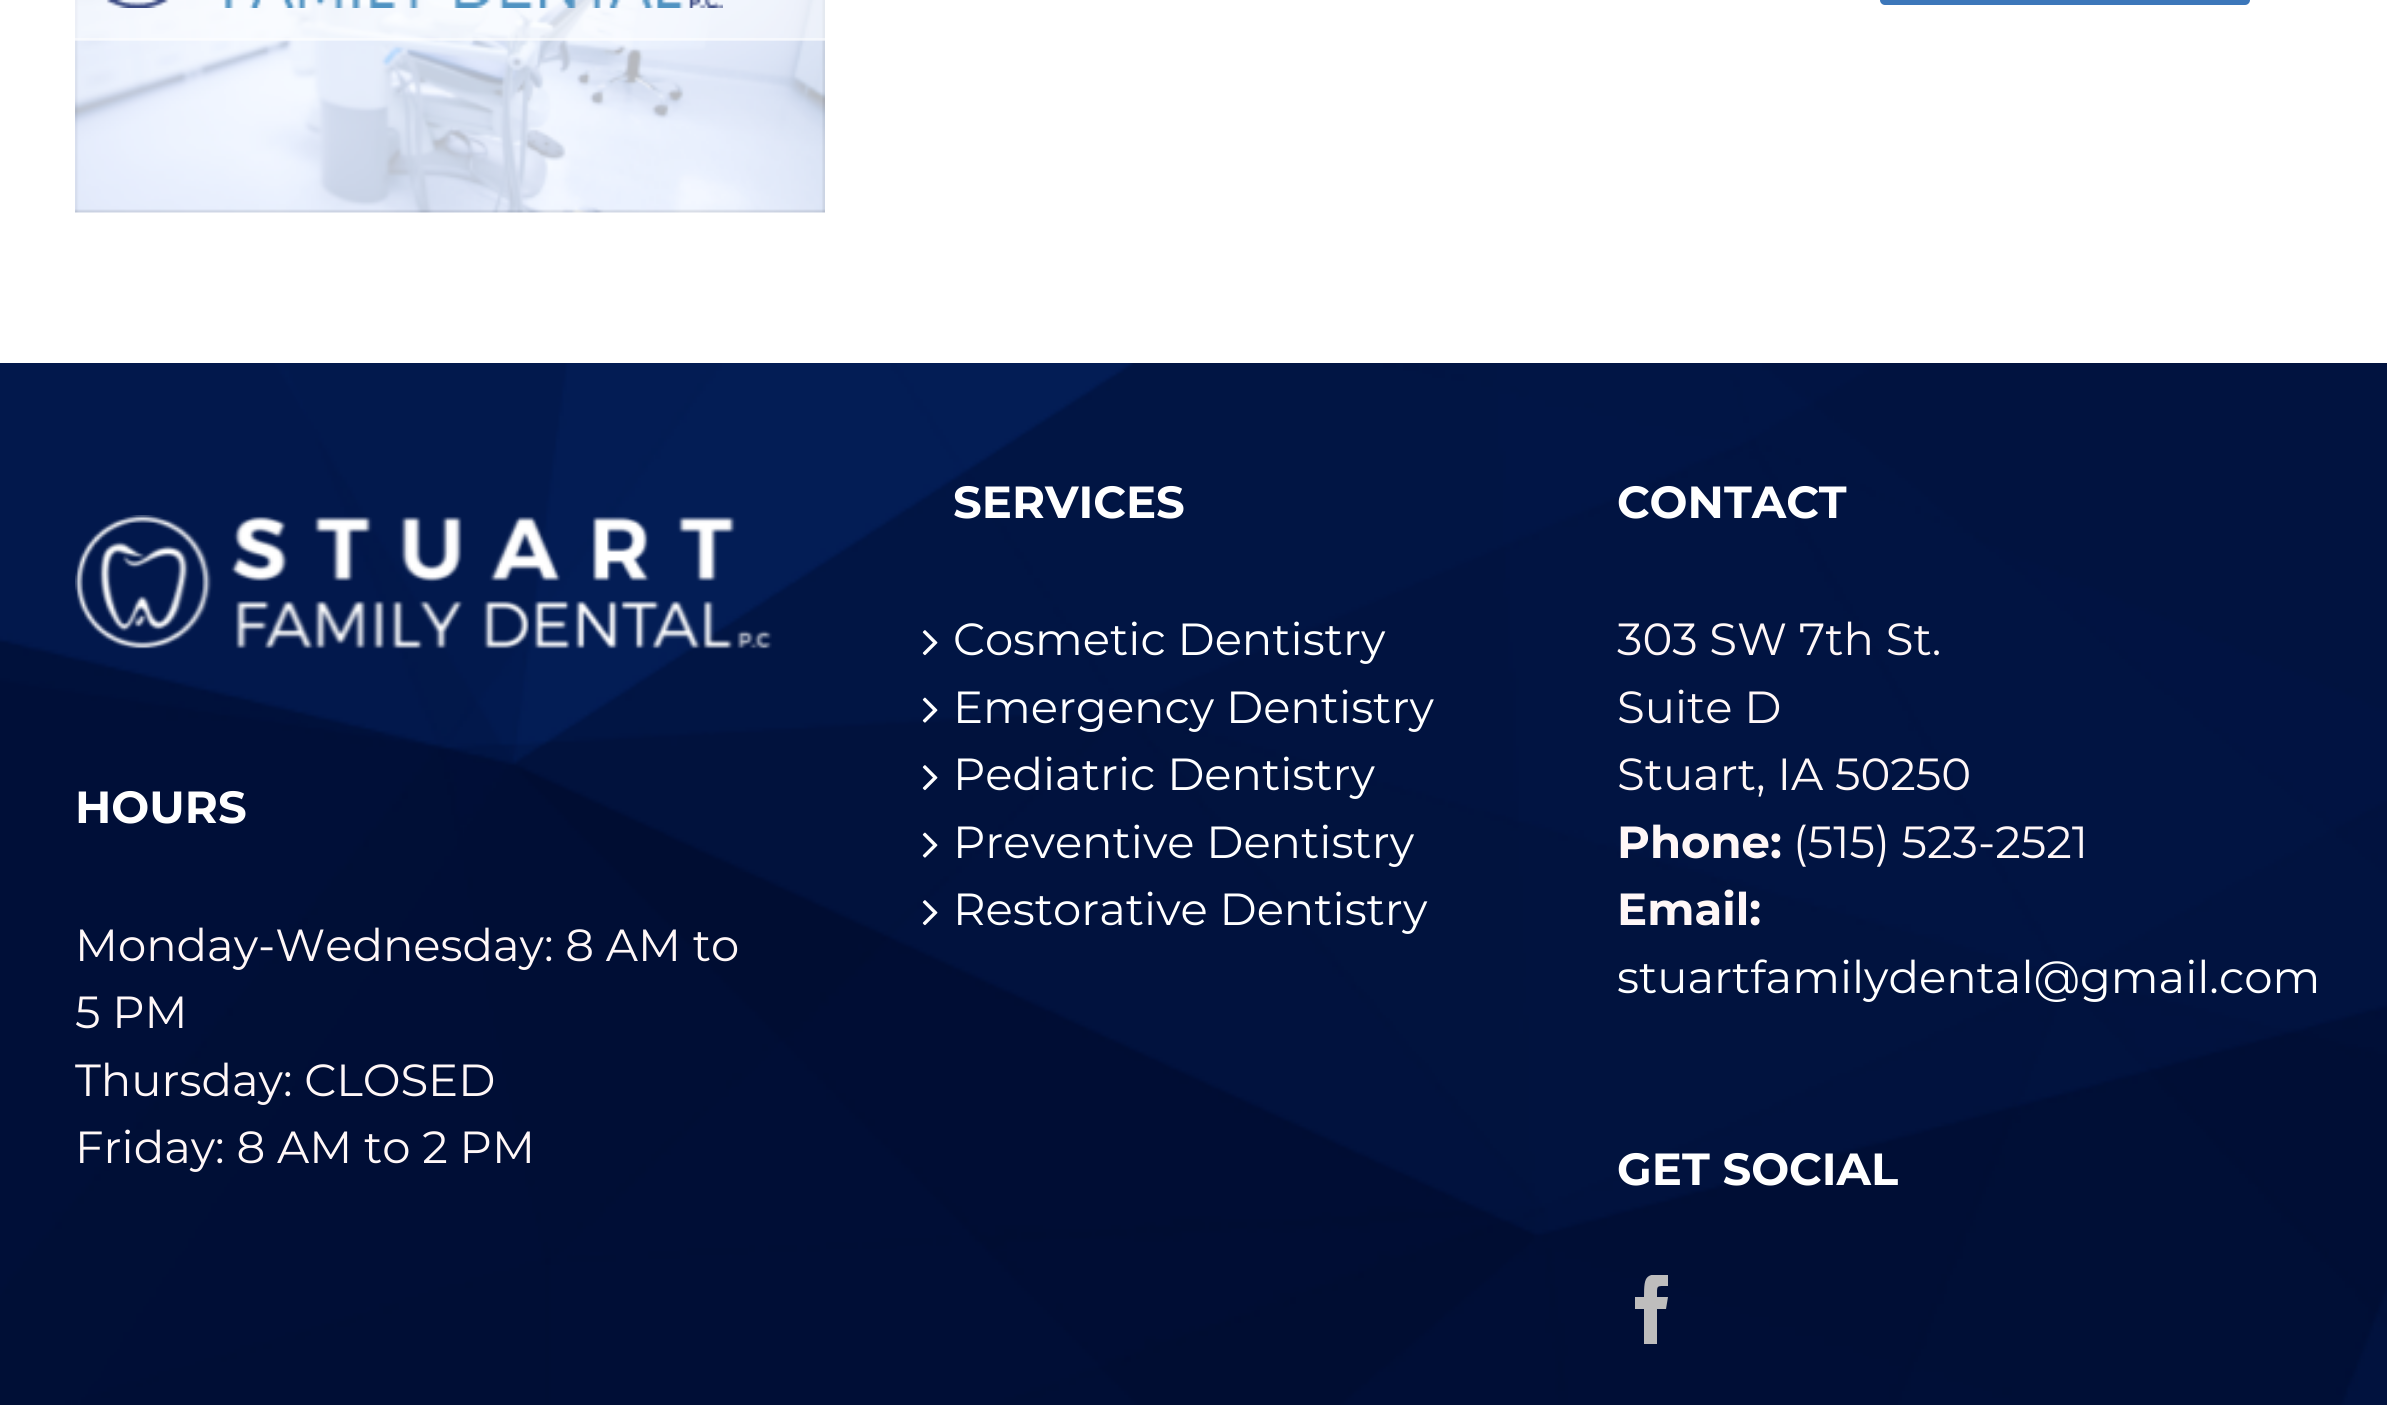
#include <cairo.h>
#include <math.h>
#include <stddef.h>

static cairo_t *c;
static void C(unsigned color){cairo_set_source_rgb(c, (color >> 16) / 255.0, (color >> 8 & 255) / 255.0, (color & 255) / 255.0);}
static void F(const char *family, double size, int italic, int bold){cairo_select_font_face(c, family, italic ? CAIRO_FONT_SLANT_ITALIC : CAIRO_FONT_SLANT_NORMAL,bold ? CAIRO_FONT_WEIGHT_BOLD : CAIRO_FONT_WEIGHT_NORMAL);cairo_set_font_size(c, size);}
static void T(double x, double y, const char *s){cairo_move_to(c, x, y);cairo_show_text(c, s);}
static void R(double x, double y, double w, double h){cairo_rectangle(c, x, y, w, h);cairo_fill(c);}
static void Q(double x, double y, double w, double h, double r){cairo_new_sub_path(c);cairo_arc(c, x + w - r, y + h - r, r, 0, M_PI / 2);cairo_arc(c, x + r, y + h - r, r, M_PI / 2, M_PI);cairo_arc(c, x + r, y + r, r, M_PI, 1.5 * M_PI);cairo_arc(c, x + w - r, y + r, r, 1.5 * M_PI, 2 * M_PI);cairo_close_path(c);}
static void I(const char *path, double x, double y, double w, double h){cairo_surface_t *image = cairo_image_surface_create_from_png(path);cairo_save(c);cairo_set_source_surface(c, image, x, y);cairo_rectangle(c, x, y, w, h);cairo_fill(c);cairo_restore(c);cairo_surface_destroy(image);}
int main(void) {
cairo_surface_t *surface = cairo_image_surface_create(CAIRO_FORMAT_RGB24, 2387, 1405);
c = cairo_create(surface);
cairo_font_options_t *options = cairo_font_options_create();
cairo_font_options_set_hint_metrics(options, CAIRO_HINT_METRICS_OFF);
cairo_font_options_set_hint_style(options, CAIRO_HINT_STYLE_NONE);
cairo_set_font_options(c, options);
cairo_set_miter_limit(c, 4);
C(0xffffff);
cairo_paint(c);
I("2.png",75,0,750,213);
cairo_set_source_rgba(c,1,1,1,0.48);
R(75,0,750,40);
R(75,38,750,3);
I("1.png",106,0,617,8);
C(0x3c77ba);
Q(1880,-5,370,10,5);
cairo_fill(c);
I("3.png",0,363,2387,1042);
I("4.png",75,515,697,134);
F("Montserrat",45,0,1);
C(0xffffff);
T(75,823,"HOURS");
F("Montserrat",45,0,0);
C(0xfff7f7);
T(75,961,"Monday-Wednesday: 8 AM to");
T(75,1028,"5 PM");
T(75,1096,"Thursday: CLOSED");
T(75,1163,"Friday: 8 AM to 2 PM");
F("Montserrat",45,0,1);
C(0xffffff);
T(953,518,"SERVICES");
I("5.png",922,630,16,26);
F("Montserrat",45,0,0);
T(953,655,"Cosmetic Dentistry");
I("6.png",922,697,16,26);
T(953,723,"Emergency Dentistry");
I("7.png",922,765,16,26);
T(953,790,"Pediatric Dentistry");
I("8.png",922,832,16,26);
T(953,858,"Preventive Dentistry");
I("9.png",922,900,16,26);
T(953,925,"Restorative Dentistry");
F("Montserrat",45,0,1);
T(1617,518,"CONTACT");
F("Montserrat",45,0,0);
C(0xfff7f7);
T(1617,655,"303 SW 7th St.");
T(1617,723,"Suite D");
T(1617,790,"Stuart, IA 50250");
F("Montserrat",45,0,1);
T(1617,858,"Phone:");
F("Montserrat",45,0,0);
T(1793,858,"(515) 523-2521");
F("Montserrat",45,0,1);
T(1617,925,"Email:");
F("Montserrat",45,0,0);
C(0xffffff);
T(1617,993,"stuartfamilydental@gmail.com");
F("Montserrat",45,0,1);
T(1617,1185,"GET SOCIAL");
cairo_save(c);
cairo_rectangle(c,1618,1275,695,105);
cairo_clip(c);
C(0xbebdbd);
cairo_new_path(c);
cairo_move_to(c,1657,1344);
cairo_line_to(c,1644,1344);
cairo_line_to(c,1644,1309);
cairo_line_to(c,1635,1309);
cairo_line_to(c,1635,1297);
cairo_line_to(c,1644,1297);
cairo_curve_to(c,1644,1274,1646,1274,1668,1274);
cairo_line_to(c,1668,1286);
cairo_curve_to(c,1656,1286,1657,1285,1657,1297);
cairo_line_to(c,1668,1297);
cairo_line_to(c,1666,1309);
cairo_line_to(c,1657,1309);
cairo_close_path(c);
cairo_fill(c);
cairo_restore(c);
cairo_surface_write_to_png(surface, "o.png");
cairo_font_options_destroy(options);
cairo_destroy(c);
cairo_surface_destroy(surface);
return 0;
}
